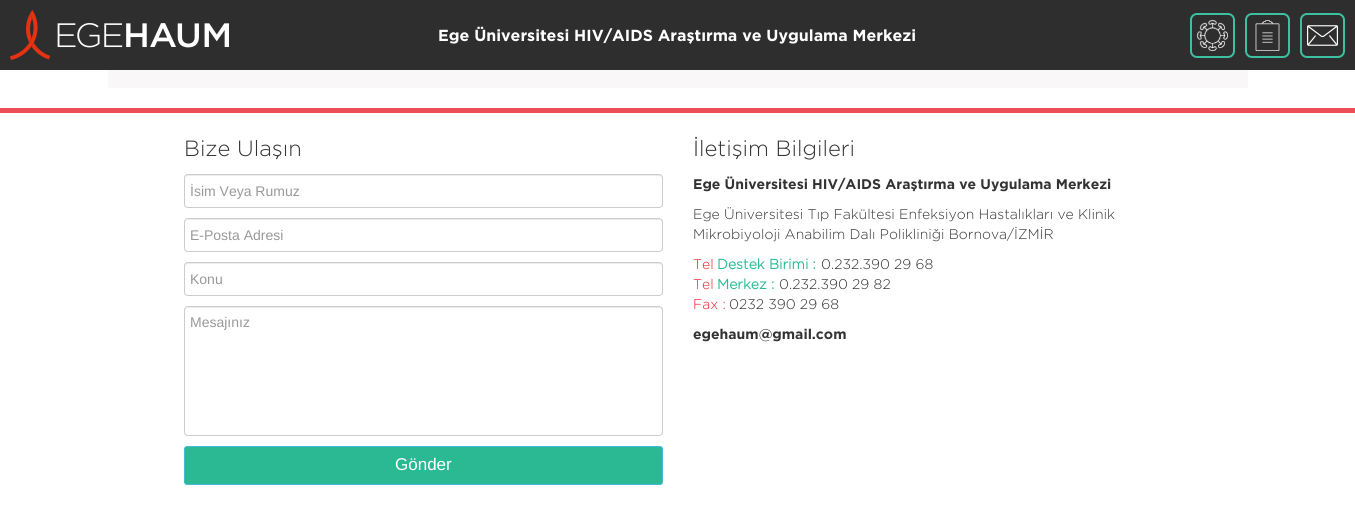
#include <cairo.h>
#include <math.h>
#include <stddef.h>

static cairo_t *c;
static void C(unsigned color){cairo_set_source_rgb(c, (color >> 16) / 255.0, (color >> 8 & 255) / 255.0, (color & 255) / 255.0);}
static void F(const char *family, double size, int italic, int bold){cairo_select_font_face(c, family, italic ? CAIRO_FONT_SLANT_ITALIC : CAIRO_FONT_SLANT_NORMAL,bold ? CAIRO_FONT_WEIGHT_BOLD : CAIRO_FONT_WEIGHT_NORMAL);cairo_set_font_size(c, size);}
static void T(double x, double y, const char *s){cairo_move_to(c, x, y);cairo_show_text(c, s);}
static void R(double x, double y, double w, double h){cairo_rectangle(c, x, y, w, h);cairo_fill(c);}
static void Q(double x, double y, double w, double h, double r){cairo_new_sub_path(c);cairo_arc(c, x + w - r, y + h - r, r, 0, M_PI / 2);cairo_arc(c, x + r, y + h - r, r, M_PI / 2, M_PI);cairo_arc(c, x + r, y + r, r, M_PI, 1.5 * M_PI);cairo_arc(c, x + w - r, y + r, r, 1.5 * M_PI, 2 * M_PI);cairo_close_path(c);}
static void I(const char *path, double x, double y, double w, double h){cairo_surface_t *image = cairo_image_surface_create_from_png(path);cairo_save(c);cairo_set_source_surface(c, image, x, y);cairo_rectangle(c, x, y, w, h);cairo_fill(c);cairo_restore(c);cairo_surface_destroy(image);}
int main(void) {
cairo_surface_t *surface = cairo_image_surface_create(CAIRO_FORMAT_RGB24, 1355, 505);
c = cairo_create(surface);
cairo_font_options_t *options = cairo_font_options_create();
cairo_font_options_set_hint_metrics(options, CAIRO_HINT_METRICS_OFF);
cairo_font_options_set_hint_style(options, CAIRO_HINT_STYLE_NONE);
cairo_set_font_options(c, options);
cairo_set_miter_limit(c, 4);
C(0xffffff);
cairo_paint(c);
C(0x2e2e2e);
R(0,0,1355,70);
I("1.png",10,10,219,50);
F("Gotham",16,0,1);
C(0xffffff);
T(438,41,"Ege Üniversitesi HIV/AIDS Araştırma ve Uygulama Merkezi");
Q(1191,14,43,43,6);
C(0x3dc09f);
cairo_stroke(c);
I("2.png",1196,19,32,32);
Q(1246,14,43,43,6);
cairo_stroke(c);
I("3.png",1255,20,25,31);
Q(1301,14,43,43,6);
cairo_stroke(c);
I("4.png",1307,25,31,21);
C(0xf9f7f7);
R(108,70,1140,18);
C(0xec5056);
R(0,108,1355,5);
F("Gotham Light",22,0,0);
C(0x333333);
T(184,156,"Bize Ulaşın");
C(0xececec);
cairo_new_path(c);
cairo_move_to(c,188,176);
cairo_line_to(c,659,176);
cairo_curve_to(c,661,176,662,177,662,179);
cairo_line_to(c,662,178);
cairo_curve_to(c,662,176,661,175,659,175);
cairo_line_to(c,188,175);
cairo_curve_to(c,186,175,185,176,185,178);
cairo_line_to(c,185,179);
cairo_curve_to(c,185,177,186,176,188,176);
cairo_close_path(c);
cairo_fill(c);
Q(184.5,174.5,478,33,3.5);
C(0xcccccc);
cairo_set_line_width(c,1);
cairo_stroke(c);
F("Liberation Sans",14,0,0);
C(0x999999);
T(190,196,"İsim Veya Rumuz");
C(0xececec);
cairo_new_path(c);
cairo_move_to(c,188,220);
cairo_line_to(c,659,220);
cairo_curve_to(c,661,220,662,221,662,223);
cairo_line_to(c,662,222);
cairo_curve_to(c,662,220,661,219,659,219);
cairo_line_to(c,188,219);
cairo_curve_to(c,186,219,185,220,185,222);
cairo_line_to(c,185,223);
cairo_curve_to(c,185,221,186,220,188,220);
cairo_close_path(c);
cairo_fill(c);
Q(184.5,218.5,478,33,3.5);
C(0xcccccc);
cairo_stroke(c);
C(0x999999);
T(190,240,"E-Posta Adresi");
C(0xececec);
cairo_new_path(c);
cairo_move_to(c,188,264);
cairo_line_to(c,659,264);
cairo_curve_to(c,661,264,662,265,662,267);
cairo_line_to(c,662,266);
cairo_curve_to(c,662,264,661,263,659,263);
cairo_line_to(c,188,263);
cairo_curve_to(c,186,263,185,264,185,266);
cairo_line_to(c,185,267);
cairo_curve_to(c,185,265,186,264,188,264);
cairo_close_path(c);
cairo_fill(c);
Q(184.5,262.5,478,33,3.5);
C(0xcccccc);
cairo_stroke(c);
C(0x999999);
T(190,284,"Konu");
C(0xececec);
cairo_new_path(c);
cairo_move_to(c,188,308);
cairo_line_to(c,659,308);
cairo_curve_to(c,661,308,662,309,662,311);
cairo_line_to(c,662,310);
cairo_curve_to(c,662,308,661,307,659,307);
cairo_line_to(c,188,307);
cairo_curve_to(c,186,307,185,308,185,310);
cairo_line_to(c,185,311);
cairo_curve_to(c,185,309,186,308,188,308);
cairo_close_path(c);
cairo_fill(c);
Q(184.5,306.5,478,129,3.5);
C(0xcccccc);
cairo_stroke(c);
C(0x999999);
T(190,327,"Mesajınız");
C(0x2bb994);
Q(184.5,446.5,478,38,2.5);
cairo_fill_preserve(c);
C(0x46b8da);
cairo_stroke(c);
F("Liberation Sans",17,0,0);
C(0xffffff);
T(395,470,"Gönder");
F("Gotham Light",22,0,0);
C(0x333333);
T(693,156,"İletişim Bilgileri");
F("Gotham",14,0,1);
T(693,189,"Ege Üniversitesi HIV/AIDS Araştırma ve Uygulama Merkezi");
F("Gotham Light",14,0,0);
T(693,219,"Ege Üniversitesi Tıp Fakültesi Enfeksiyon Hastalıkları ve Klinik");
T(693,239,"Mikrobiyoloji Anabilim Dalı Polikliniği Bornova/İZMİR");
C(0xed1c24);
T(693,269,"Tel");
F("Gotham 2",14,0,1);
C(0x2bb994);
T(717,269,"Destek Birimi :");
F("Gotham Light",14,0,0);
C(0x333333);
T(821,269,"0.232.390 29 68");
C(0xed1c24);
T(693,289,"Tel");
F("Gotham 2",14,0,1);
C(0x2bb994);
T(717,289,"Merkez :");
F("Gotham Light",14,0,0);
C(0x333333);
T(779,289,"0.232.390 29 82");
C(0xed1c24);
T(693,309,"Fax :");
C(0x333333);
T(729,309,"0232 390 29 68");
F("Gotham",14,0,1);
T(693,339,"egehaum@gmail.com");
cairo_surface_write_to_png(surface, "o.png");
cairo_font_options_destroy(options);
cairo_destroy(c);
cairo_surface_destroy(surface);
return 0;
}
